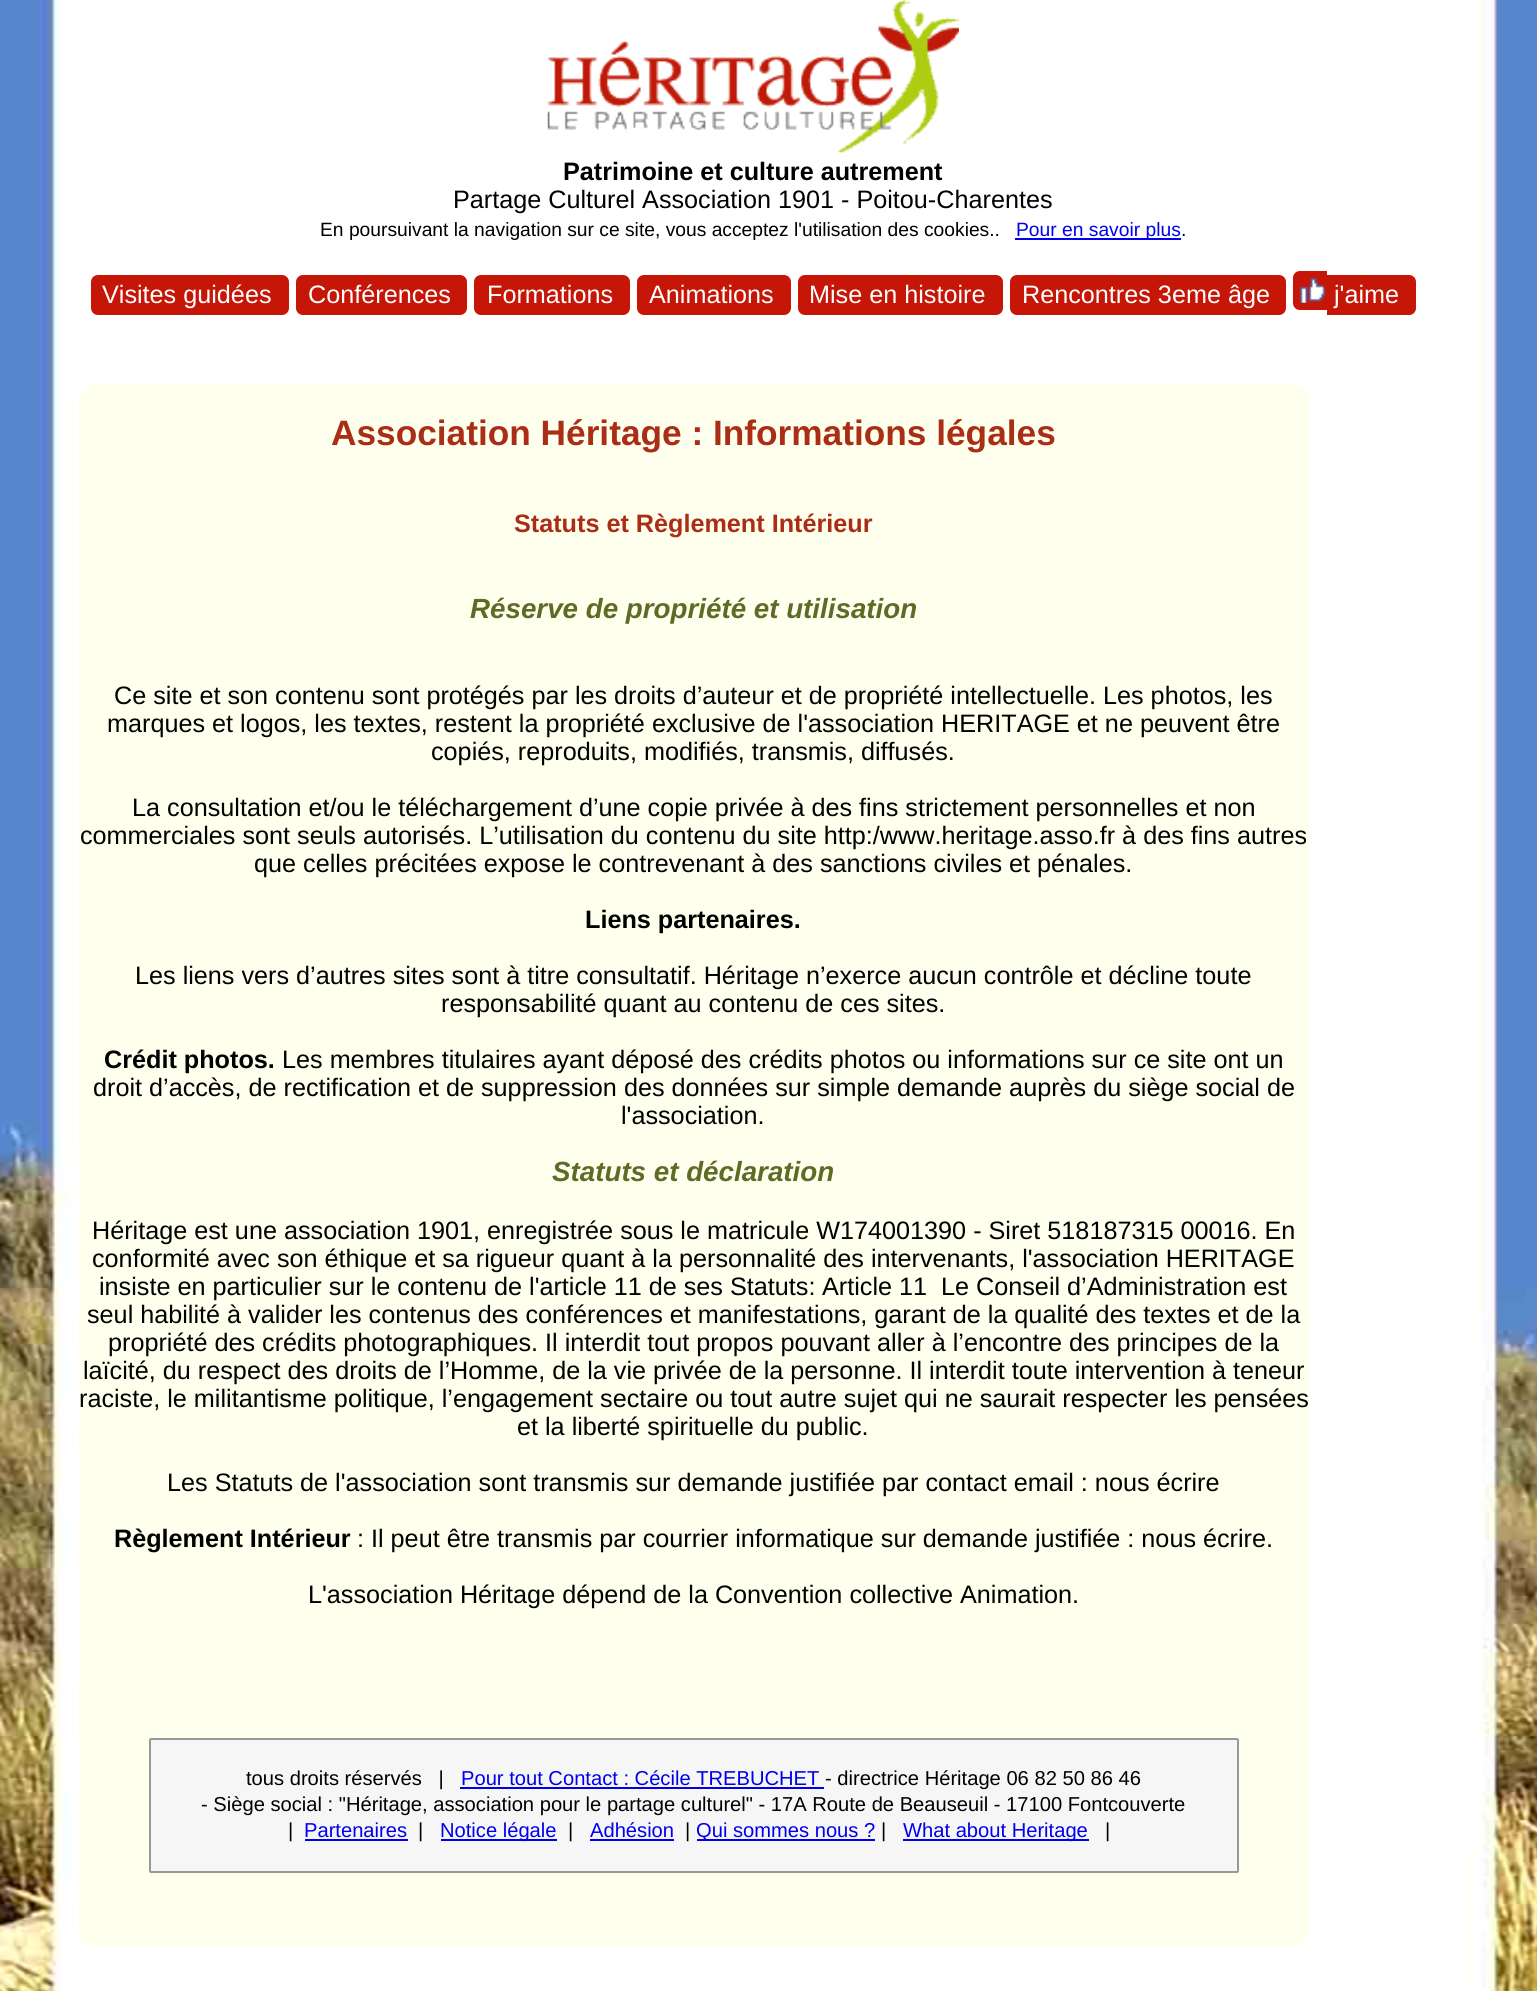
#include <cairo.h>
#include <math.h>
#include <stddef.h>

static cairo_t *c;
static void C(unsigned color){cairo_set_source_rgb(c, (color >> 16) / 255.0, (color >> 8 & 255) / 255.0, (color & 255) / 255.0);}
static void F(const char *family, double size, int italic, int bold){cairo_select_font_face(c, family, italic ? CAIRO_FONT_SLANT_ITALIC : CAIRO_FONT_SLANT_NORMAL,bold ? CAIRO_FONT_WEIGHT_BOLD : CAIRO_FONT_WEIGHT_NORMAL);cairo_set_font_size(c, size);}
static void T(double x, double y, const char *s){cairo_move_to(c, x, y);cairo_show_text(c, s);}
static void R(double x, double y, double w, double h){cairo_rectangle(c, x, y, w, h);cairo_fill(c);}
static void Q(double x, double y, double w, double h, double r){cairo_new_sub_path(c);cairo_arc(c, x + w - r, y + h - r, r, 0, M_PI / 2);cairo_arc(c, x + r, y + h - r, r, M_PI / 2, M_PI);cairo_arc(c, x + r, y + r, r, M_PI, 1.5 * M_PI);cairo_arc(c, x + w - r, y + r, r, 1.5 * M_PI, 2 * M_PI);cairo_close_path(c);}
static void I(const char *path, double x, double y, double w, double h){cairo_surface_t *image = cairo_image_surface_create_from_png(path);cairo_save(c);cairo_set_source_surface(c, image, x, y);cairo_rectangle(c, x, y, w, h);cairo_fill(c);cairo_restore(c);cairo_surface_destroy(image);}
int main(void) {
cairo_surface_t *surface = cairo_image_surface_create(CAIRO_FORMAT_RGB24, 1537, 1991);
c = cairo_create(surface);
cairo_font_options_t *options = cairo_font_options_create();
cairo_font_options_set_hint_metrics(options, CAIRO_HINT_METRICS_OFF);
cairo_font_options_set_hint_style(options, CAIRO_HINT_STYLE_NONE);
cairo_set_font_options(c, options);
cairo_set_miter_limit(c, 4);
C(0xffffff);
cairo_paint(c);
I("1.png",0,0,1537,1991);
I("2.png",547,0,412,153);
F("Liberation Sans",25.2,0,1);
C(0x000000);
T(563,180,"Patrimoine et culture autrement");
F("Liberation Sans",25.2,0,0);
T(453,208,"Partage Culturel Association 1901 - Poitou-Charentes");
F("Liberation Sans",19.25,0,0);
T(320,236,"En poursuivant la navigation sur ce site, vous acceptez l'utilisation des cookies..");
C(0x0000ee);
R(1015,238,166,2);
T(1016,236,"Pour en savoir plus");
C(0x000000);
T(1181,236,".");
C(0xc61607);
Q(91,275,198,40,7);
cairo_fill(c);
F("Liberation Sans",25.2,0,0);
C(0xffffff);
T(102,303,"Visites guidées");
C(0xc61607);
Q(296,275,171,40,7);
cairo_fill(c);
C(0xffffff);
T(308,303,"Conférences");
C(0xc61607);
Q(474,275,156,40,7);
cairo_fill(c);
C(0xffffff);
T(487,303,"Formations");
C(0xc61607);
Q(637,275,154,40,7);
cairo_fill(c);
C(0xffffff);
T(649,303,"Animations");
C(0xc61607);
Q(798,275,205,40,7);
cairo_fill(c);
C(0xffffff);
T(809,303,"Mise en histoire");
C(0xc61607);
Q(1010,275,276,40,7);
cairo_fill(c);
C(0xffffff);
T(1022,303,"Rencontres 3eme âge");
C(0xc61607);
cairo_new_path(c);
cairo_move_to(c,1300,271);
cairo_line_to(c,1327,271);
cairo_line_to(c,1327,310);
cairo_line_to(c,1300,310);
cairo_curve_to(c,1296,310,1293,307,1293,303);
cairo_line_to(c,1293,278);
cairo_curve_to(c,1293,274,1296,271,1300,271);
cairo_close_path(c);
cairo_fill(c);
I("3.png",1299,277,27,26);
cairo_new_path(c);
cairo_move_to(c,1327,275);
cairo_line_to(c,1409,275);
cairo_curve_to(c,1413,275,1416,278,1416,282);
cairo_line_to(c,1416,308);
cairo_curve_to(c,1416,312,1413,315,1409,315);
cairo_line_to(c,1327,315);
cairo_close_path(c);
cairo_fill(c);
C(0xffffff);
T(1334,303,"j'aime");
C(0xffffee);
Q(79,385,1230,1561,14);
cairo_fill(c);
F("Liberation Sans",35.25,0,1);
C(0xaa2d15);
T(331,445,"Association Héritage : Informations légales");
F("Liberation Sans",25.2,0,1);
T(514,532,"Statuts et Règlement Intérieur");
F("Liberation Sans",27.75,1,1);
C(0x5f6a25);
T(470,618,"Réserve de propriété et utilisation");
F("Liberation Sans",25.2,0,0);
C(0x000000);
T(114,704,"Ce site et son contenu sont protégés par les droits d’auteur et de propriété intellectuelle. Les photos, les");
T(107,732,"marques et logos, les textes, restent la propriété exclusive de l'association HERITAGE et ne peuvent être");
T(431,760,"copiés, reproduits, modifiés, transmis, diffusés.");
T(132,816,"La consultation et/ou le téléchargement d’une copie privée à des fins strictement personnelles et non");
T(80,844,"commerciales sont seuls autorisés. L’utilisation du contenu du site http:/www.heritage.asso.fr à des fins autres");
T(254,872,"que celles précitées expose le contrevenant à des sanctions civiles et pénales.");
F("Liberation Sans",25.2,0,1);
T(585,928,"Liens partenaires.");
F("Liberation Sans",25.2,0,0);
T(135,984,"Les liens vers d’autres sites sont à titre consultatif. Héritage n’exerce aucun contrôle et décline toute");
T(441,1012,"responsabilité quant au contenu de ces sites.");
F("Liberation Sans",25.2,0,1);
T(104,1068,"Crédit photos.");
F("Liberation Sans",25.2,0,0);
T(282,1068,"Les membres titulaires ayant déposé des crédits photos ou informations sur ce site ont un");
T(93,1096,"droit d’accès, de rectification et de suppression des données sur simple demande auprès du siège social de");
T(621,1124,"l'association.");
F("Liberation Sans",27.75,1,1);
C(0x5f6a25);
T(552,1181,"Statuts et déclaration");
F("Liberation Sans",25.2,0,0);
C(0x000000);
T(92,1239,"Héritage est une association 1901, enregistrée sous le matricule W174001390 - Siret 518187315 00016. En");
T(92,1267,"conformité avec son éthique et sa rigueur quant à la personnalité des intervenants, l'association HERITAGE");
T(99,1295,"insiste en particulier sur le contenu de l'article 11 de ses Statuts:");
T(822,1295,"Article 11");
T(941,1295,"Le Conseil d’Administration est");
T(87,1323,"seul habilité à valider les contenus des conférences et manifestations, garant de la qualité des textes et de la");
T(108,1351,"propriété des crédits photographiques. Il interdit tout propos pouvant aller à l’encontre des principes de la");
T(83,1379,"laïcité, du respect des droits de l’Homme, de la vie privée de la personne. Il interdit toute intervention à teneur");
T(79,1407,"raciste, le militantisme politique, l’engagement sectaire ou tout autre sujet qui ne saurait respecter les pensées");
T(517,1435,"et la liberté spirituelle du public.");
T(167,1491,"Les Statuts de l'association sont transmis sur demande justifiée par contact email : nous écrire");
F("Liberation Sans",25.2,0,1);
T(114,1547,"Règlement Intérieur");
F("Liberation Sans",25.2,0,0);
T(357,1547,": Il peut être transmis par courrier informatique sur demande justifiée : nous écrire.");
T(308,1603,"L'association Héritage dépend de la Convention collective Animation.");
C(0xf6f6f6);
Q(150,1739,1088,133,1);
cairo_fill_preserve(c);
C(0x999999);
cairo_stroke(c);
F("Liberation Sans",20.15,0,0);
C(0x000000);
T(246,1785,"tous droits réservés   |");
C(0x0000ee);
T(461,1785,"Pour tout Contact : Cécile TREBUCHET");
R(460,1787,364,2);
C(0x000000);
T(825,1785,"- directrice Héritage 06 82 50 86 46");
T(201,1811,"- Siège social : \"Héritage, association pour le partage culturel\" - 17A Route de Beauseuil - 17100 Fontcouverte");
T(288,1837,"|");
C(0x0000ee);
T(304,1837,"Partenaires");
R(305,1839,103,2);
C(0x000000);
T(418,1837,"|");
C(0x0000ee);
R(441,1839,116,2);
T(440,1837,"Notice légale");
C(0x000000);
T(568,1837,"|");
C(0x0000ee);
T(590,1837,"Adhésion");
R(590,1839,84,2);
C(0x000000);
T(685,1837,"|");
C(0x0000ee);
R(697,1839,178,2);
T(696,1837,"Qui sommes nous ?");
C(0x000000);
T(881,1837,"|");
C(0x0000ee);
R(903,1839,186,2);
T(903,1837,"What about Heritage");
C(0x000000);
T(1105,1837,"|");
cairo_surface_write_to_png(surface, "o.png");
cairo_font_options_destroy(options);
cairo_destroy(c);
cairo_surface_destroy(surface);
return 0;
}
